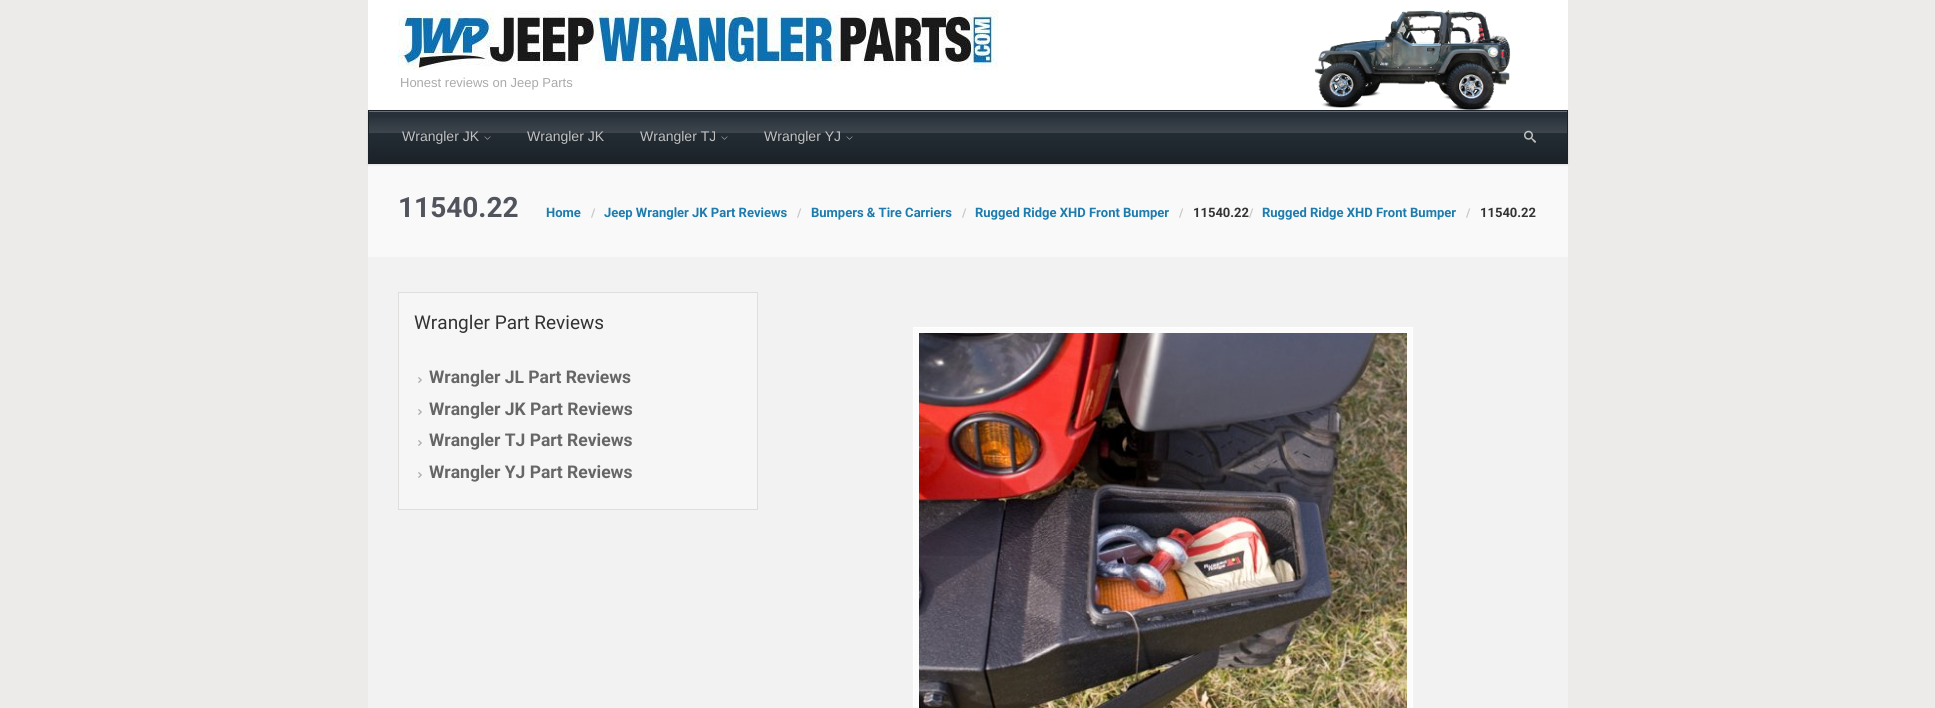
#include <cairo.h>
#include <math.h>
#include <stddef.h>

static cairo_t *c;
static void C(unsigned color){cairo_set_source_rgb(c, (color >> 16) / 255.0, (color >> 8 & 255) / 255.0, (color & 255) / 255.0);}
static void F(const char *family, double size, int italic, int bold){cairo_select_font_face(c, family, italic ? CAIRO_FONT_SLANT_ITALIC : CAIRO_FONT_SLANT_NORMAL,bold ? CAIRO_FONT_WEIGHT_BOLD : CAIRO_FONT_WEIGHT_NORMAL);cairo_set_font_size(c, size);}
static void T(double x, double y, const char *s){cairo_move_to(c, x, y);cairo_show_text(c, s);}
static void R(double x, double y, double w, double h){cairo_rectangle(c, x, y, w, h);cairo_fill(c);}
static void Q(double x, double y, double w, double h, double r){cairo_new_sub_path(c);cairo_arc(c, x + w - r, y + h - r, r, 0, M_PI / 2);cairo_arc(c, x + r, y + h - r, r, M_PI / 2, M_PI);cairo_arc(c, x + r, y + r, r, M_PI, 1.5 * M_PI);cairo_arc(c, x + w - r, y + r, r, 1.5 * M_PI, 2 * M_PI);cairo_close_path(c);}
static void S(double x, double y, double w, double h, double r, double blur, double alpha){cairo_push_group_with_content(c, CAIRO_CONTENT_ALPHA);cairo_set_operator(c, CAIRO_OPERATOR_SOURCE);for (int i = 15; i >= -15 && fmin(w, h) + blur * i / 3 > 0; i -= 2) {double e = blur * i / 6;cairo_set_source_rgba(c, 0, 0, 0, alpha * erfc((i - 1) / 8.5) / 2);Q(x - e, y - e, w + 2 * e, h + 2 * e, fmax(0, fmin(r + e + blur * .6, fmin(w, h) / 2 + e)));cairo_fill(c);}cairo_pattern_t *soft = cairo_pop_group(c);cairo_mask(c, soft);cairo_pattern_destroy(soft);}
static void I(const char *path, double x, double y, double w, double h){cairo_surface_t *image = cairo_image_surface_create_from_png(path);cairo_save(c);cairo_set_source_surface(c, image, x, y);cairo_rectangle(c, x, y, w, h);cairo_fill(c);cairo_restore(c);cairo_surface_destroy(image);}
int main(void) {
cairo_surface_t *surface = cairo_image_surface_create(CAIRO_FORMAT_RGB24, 1935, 708);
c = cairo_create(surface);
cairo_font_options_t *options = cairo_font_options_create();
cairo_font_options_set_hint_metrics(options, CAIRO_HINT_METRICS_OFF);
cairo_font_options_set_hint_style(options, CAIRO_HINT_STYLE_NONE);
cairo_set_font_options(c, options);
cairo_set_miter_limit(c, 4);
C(0xecebe9);
cairo_paint(c);
C(0xffffff);
R(368,0,1200,110);
I("1.png",398,10,600,60);
C(0xf9f9f9);
R(368,164,1200,93);
C(0x000000);
S(368,111,1200,54,0,1,.1);
I("2.png",1314,10,197,100);
F("Liberation Sans",13,0,0);
C(0xaaaaaa);
T(400,87,"Honest reviews on Jeep Parts");
I("3.png",369,112,1198,51);
C(0x686e74);
R(369,111,1198,1);
cairo_rectangle(c,368.5,110.5,1199,53);
C(0x1b2228);
cairo_set_line_width(c,1);
cairo_stroke(c);
F("Liberation Sans",14,0,0);
C(0xc1c1c1);
T(402,141,"Wrangler JK");
I("4.png",484,136,7,4);
T(527,141,"Wrangler JK");
T(640,141,"Wrangler TJ");
I("5.png",721,136,7,4);
T(764,141,"Wrangler YJ");
I("6.png",846,136,7,4);
I("7.png",1524,130,12,13);
C(0xf2f2f2);
R(368,257,1200,451);
F("Roboto",28,0,1);
C(0x51545c);
T(398,217,"11540.22");
F("Roboto",13,0,1);
C(0x1d7bad);
T(546,217,"Home");
F("Roboto",12,0,1);
C(0xc7c7c7);
T(591,217,"/");
F("Roboto",13,0,1);
C(0x1d7bad);
T(604,217,"Jeep Wrangler JK Part Reviews");
F("Roboto",12,0,1);
C(0xc7c7c7);
T(797,217,"/");
F("Roboto",13,0,1);
C(0x1d7bad);
T(811,217,"Bumpers & Tire Carriers");
F("Roboto",12,0,1);
C(0xc7c7c7);
T(962,217,"/");
F("Roboto",13,0,1);
C(0x1d7bad);
T(975,217,"Rugged Ridge XHD Front Bumper");
F("Roboto",12,0,1);
C(0xc7c7c7);
T(1179,217,"/");
F("Roboto",13,0,1);
C(0x333333);
T(1193,217,"11540.22");
F("Roboto",12,0,1);
C(0xc7c7c7);
T(1249,217,"/");
F("Roboto",13,0,1);
C(0x1d7bad);
T(1262,217,"Rugged Ridge XHD Front Bumper");
F("Roboto",12,0,1);
C(0xc7c7c7);
T(1466,217,"/");
F("Roboto",13,0,1);
C(0x333333);
T(1480,217,"11540.22");
C(0xf6f6f6);
cairo_rectangle(c,398.5,292.5,359,217);
cairo_fill_preserve(c);
C(0xe0dddd);
cairo_stroke(c);
F("Roboto",19,0,0);
C(0x333333);
T(414,329,"Wrangler Part Reviews");
I("8.png",418,377,4,6);
F("Roboto",17.5,0,1);
C(0x666666);
T(429,383,"Wrangler JL Part Reviews");
I("8.png",418,409,4,6);
T(429,415,"Wrangler JK Part Reviews");
I("8.png",418,440,4,6);
T(429,446,"Wrangler TJ Part Reviews");
I("8.png",418,472,4,6);
T(429,478,"Wrangler YJ Part Reviews");
C(0xfcfcfc);
cairo_rectangle(c,913.5,327.5,499,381);
cairo_fill_preserve(c);
C(0xffffff);
cairo_stroke(c);
I("9.png",919,333,488,375);
cairo_surface_write_to_png(surface, "o.png");
cairo_font_options_destroy(options);
cairo_destroy(c);
cairo_surface_destroy(surface);
return 0;
}
